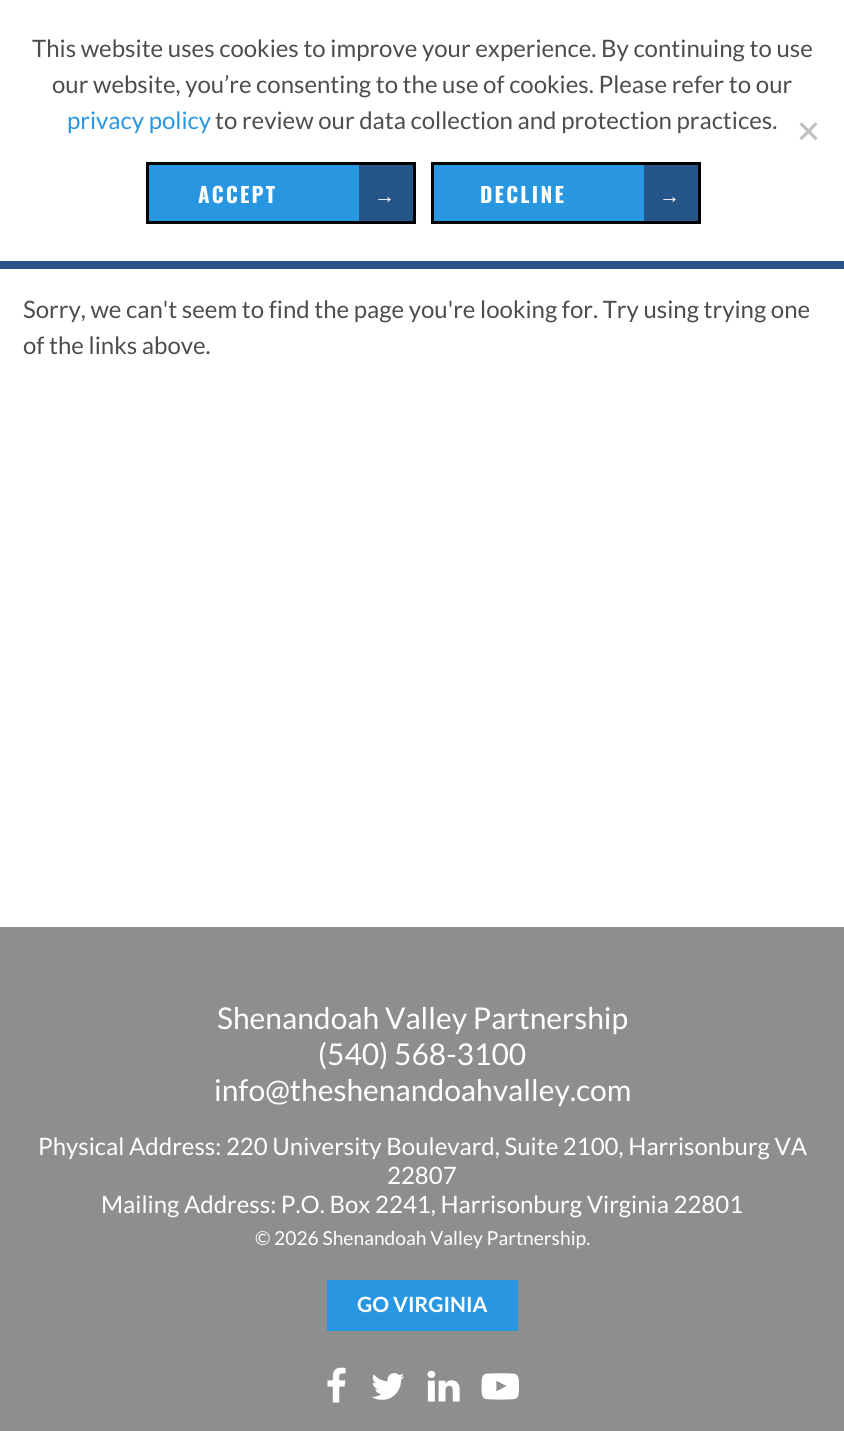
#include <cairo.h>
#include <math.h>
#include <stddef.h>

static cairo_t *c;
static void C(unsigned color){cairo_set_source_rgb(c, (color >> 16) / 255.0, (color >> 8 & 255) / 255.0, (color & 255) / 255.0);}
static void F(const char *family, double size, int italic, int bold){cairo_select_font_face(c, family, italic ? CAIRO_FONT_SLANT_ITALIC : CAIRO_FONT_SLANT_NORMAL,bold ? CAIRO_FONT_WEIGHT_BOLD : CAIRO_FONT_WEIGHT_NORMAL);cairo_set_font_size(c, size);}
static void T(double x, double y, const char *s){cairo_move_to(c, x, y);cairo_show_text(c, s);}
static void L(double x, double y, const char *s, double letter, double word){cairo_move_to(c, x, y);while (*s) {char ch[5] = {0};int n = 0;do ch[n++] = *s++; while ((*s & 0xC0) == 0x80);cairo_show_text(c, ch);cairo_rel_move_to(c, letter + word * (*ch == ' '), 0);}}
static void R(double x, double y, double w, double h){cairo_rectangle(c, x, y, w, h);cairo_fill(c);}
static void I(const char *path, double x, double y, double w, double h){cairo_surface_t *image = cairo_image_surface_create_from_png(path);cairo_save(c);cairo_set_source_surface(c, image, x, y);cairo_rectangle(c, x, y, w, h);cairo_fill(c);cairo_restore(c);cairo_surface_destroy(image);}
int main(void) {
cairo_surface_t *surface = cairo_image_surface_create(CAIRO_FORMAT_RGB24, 844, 1431);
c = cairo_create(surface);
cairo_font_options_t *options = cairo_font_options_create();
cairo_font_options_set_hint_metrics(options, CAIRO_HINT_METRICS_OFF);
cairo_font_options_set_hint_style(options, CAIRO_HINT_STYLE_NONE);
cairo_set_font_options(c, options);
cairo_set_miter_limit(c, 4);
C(0xffffff);
cairo_paint(c);
C(0x27558a);
R(0,261,844,8);
F("Lato",24,0,0);
C(0x4d4d4d);
T(32,57,"This website uses cookies to improve your experience. By continuing to use");
T(52,93,"our website, you’re consenting to the use of cookies. Please refer to our");
C(0x2996e2);
T(67,129,"privacy policy");
C(0x4d4d4d);
T(215,129,"to review our data collection and protection practices.");
C(0xc0c0c0);
cairo_new_path(c);
cairo_move_to(c,815.5,122);
cairo_line_to(c,817.5,124.5);
cairo_line_to(c,801.5,140.5);
cairo_line_to(c,799.5,138);
cairo_close_path(c);
cairo_fill(c);
cairo_new_path(c);
cairo_move_to(c,799.5,124.5);
cairo_line_to(c,801.5,122);
cairo_line_to(c,817.5,138);
cairo_line_to(c,815.5,140.5);
cairo_close_path(c);
cairo_fill(c);
C(0x2996e2);
R(149,165,210,56);
cairo_rectangle(c,147.5,163.5,267,59);
C(0x000000);
cairo_set_line_width(c,3);
cairo_stroke(c);
F("Oswald",21,0,1);
C(0xffffff);
L(198,203,"ACCEPT",2.25,0);
C(0x26558a);
R(359,165,54,56);
F("Liberation Sans",21,0,1);
C(0xffffff);
L(374,203,"→",2.25,0);
C(0x2996e2);
R(434,165,210,56);
cairo_rectangle(c,432.5,163.5,267,59);
C(0x000000);
cairo_stroke(c);
F("Oswald",21,0,1);
C(0xffffff);
L(480,203,"DECLINE",2.25,0);
C(0x26558a);
R(644,165,54,56);
F("Liberation Sans",21,0,1);
C(0xffffff);
L(659,203,"→",2.25,0);
F("Lato",24,0,0);
C(0x4d4d4d);
T(23,318,"Sorry, we can't seem to find the page you're looking for. Try using trying one");
T(23,354,"of the links above.");
C(0x8e8e8e);
R(0,927,844,504);
F("Lato",30,0,0);
C(0xffffff);
T(217,1029,"Shenandoah Valley Partnership");
T(318,1065,"(540) 568-3100");
T(214,1101,"info@theshenandoahvalley.com");
F("Lato",24,0,0);
T(38,1155,"Physical Address: 220 University Boulevard, Suite 2100, Harrisonburg VA");
T(387,1184,"22807");
T(101,1213,"Mailing Address: P.O. Box 2241, Harrisonburg Virginia 22801");
F("Lato",19.25,0,0);
T(255,1245,"© 2026 Shenandoah Valley Partnership.");
C(0x2996e2);
R(327,1280,191,51);
F("Lato",21,0,1);
C(0xffffff);
T(357,1312,"GO VIRGINIA");
I("1.png",327,1367,19,36);
I("2.png",371,1373,34,27);
I("3.png",427,1370,33,32);
I("4.png",481,1373,38,27);
cairo_surface_write_to_png(surface, "o.png");
cairo_font_options_destroy(options);
cairo_destroy(c);
cairo_surface_destroy(surface);
return 0;
}
